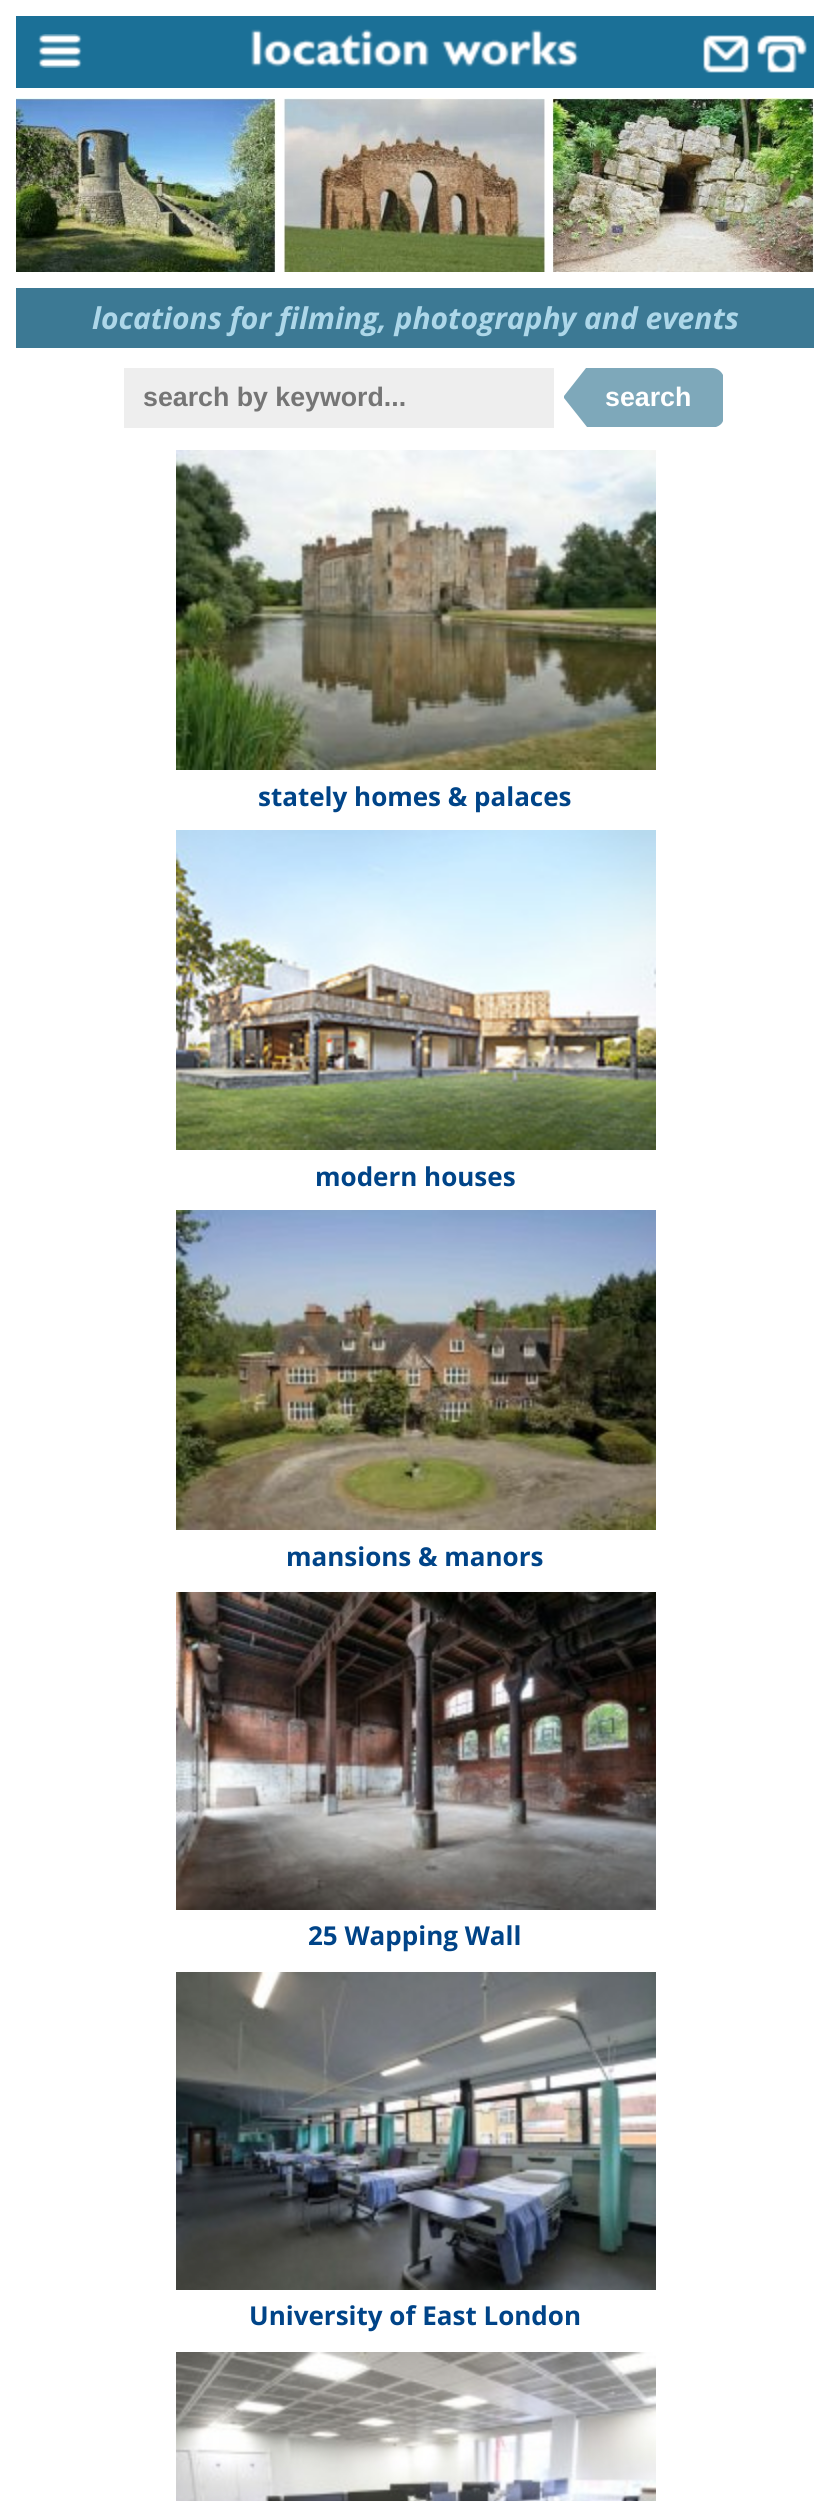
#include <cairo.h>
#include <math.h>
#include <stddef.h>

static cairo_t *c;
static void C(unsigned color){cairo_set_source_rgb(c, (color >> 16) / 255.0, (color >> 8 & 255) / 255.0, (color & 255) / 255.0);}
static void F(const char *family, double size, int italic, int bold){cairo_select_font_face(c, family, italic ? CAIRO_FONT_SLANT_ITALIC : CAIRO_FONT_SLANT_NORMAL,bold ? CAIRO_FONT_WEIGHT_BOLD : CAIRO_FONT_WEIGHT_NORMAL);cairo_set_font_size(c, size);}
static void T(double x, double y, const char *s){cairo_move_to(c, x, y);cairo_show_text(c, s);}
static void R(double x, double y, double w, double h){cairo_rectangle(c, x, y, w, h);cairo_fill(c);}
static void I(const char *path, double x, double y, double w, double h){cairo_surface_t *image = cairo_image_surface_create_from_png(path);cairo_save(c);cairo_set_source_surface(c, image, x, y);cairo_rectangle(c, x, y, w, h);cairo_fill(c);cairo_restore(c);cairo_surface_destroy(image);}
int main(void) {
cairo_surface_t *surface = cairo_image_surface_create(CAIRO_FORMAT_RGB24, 830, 2501);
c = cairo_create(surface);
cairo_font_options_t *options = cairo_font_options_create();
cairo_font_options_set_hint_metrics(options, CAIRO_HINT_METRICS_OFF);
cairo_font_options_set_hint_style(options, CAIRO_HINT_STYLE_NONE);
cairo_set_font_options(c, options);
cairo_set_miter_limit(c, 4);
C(0xffffff);
cairo_paint(c);
C(0x1b7097);
R(16,16,798,72);
I("1.png",38,34,44,34);
I("2.png",251,29,328,38);
I("3.png",703,35,46,38);
I("4.png",757,35,50,38);
I("5.png",16,98,798,174);
C(0x3c7994);
R(16,288,798,60);
F("Open Sans",30,1,1);
C(0xadd7e9);
T(92,329,"locations for filming, photography and events");
C(0xeeeeee);
R(124,368,430,60);
F("Liberation Sans",26.75,0,1);
C(0x757575);
T(143,406,"search by keyword...");
C(0x7ea8ba);
cairo_new_path(c);
cairo_move_to(c,564,396);
cairo_line_to(c,586,368);
cairo_line_to(c,712,368);
cairo_curve_to(c,717,368,721,371,723,375);
cairo_line_to(c,723,421);
cairo_curve_to(c,722,424,719,426,716,427);
cairo_line_to(c,587,427);
cairo_line_to(c,564,398);
cairo_close_path(c);
cairo_fill(c);
C(0xffffff);
T(605,406,"search");
I("6.png",176,450,480,320);
F("Open Sans",26,0,1);
C(0x004488);
T(258,806,"stately homes & palaces");
I("7.png",176,830,480,320);
T(315,1186,"modern houses");
I("8.png",176,1210,480,320);
T(286,1566,"mansions & manors");
I("9.png",176,1592,480,318);
T(308,1945,"25 Wapping Wall");
I("10.png",176,1972,480,318);
T(249,2325,"University of East London");
I("11.png",176,2352,480,149);
cairo_surface_write_to_png(surface, "o.png");
cairo_font_options_destroy(options);
cairo_destroy(c);
cairo_surface_destroy(surface);
return 0;
}
